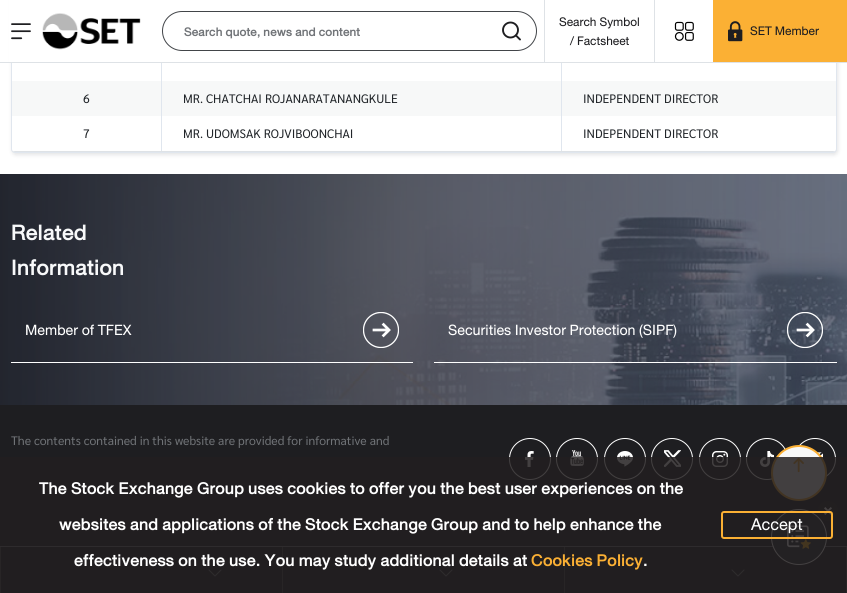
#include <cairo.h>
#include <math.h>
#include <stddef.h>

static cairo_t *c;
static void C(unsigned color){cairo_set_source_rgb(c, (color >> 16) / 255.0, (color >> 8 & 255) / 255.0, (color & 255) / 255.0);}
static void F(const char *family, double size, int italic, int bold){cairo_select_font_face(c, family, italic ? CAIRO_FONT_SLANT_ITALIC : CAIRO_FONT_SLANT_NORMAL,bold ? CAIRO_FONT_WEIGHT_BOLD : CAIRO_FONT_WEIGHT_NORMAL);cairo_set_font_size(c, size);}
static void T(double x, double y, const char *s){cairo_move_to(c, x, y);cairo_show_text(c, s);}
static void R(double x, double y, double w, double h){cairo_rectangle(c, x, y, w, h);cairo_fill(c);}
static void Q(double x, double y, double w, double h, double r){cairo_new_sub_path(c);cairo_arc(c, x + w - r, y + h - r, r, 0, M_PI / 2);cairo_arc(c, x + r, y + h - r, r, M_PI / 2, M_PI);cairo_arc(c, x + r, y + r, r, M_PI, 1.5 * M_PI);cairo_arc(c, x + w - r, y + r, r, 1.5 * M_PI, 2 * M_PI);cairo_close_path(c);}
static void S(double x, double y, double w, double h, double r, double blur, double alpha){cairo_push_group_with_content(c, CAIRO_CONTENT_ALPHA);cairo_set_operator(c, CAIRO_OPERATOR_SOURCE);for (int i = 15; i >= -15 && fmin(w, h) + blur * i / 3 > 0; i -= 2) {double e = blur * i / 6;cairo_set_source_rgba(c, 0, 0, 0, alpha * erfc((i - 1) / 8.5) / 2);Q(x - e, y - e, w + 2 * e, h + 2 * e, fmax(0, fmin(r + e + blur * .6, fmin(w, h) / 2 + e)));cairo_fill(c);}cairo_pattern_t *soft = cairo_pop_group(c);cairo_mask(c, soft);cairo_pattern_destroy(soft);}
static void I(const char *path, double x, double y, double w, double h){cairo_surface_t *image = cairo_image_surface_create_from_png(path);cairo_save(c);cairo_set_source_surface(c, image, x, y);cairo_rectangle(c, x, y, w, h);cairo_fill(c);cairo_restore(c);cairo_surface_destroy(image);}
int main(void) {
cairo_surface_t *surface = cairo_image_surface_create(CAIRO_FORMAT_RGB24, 847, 593);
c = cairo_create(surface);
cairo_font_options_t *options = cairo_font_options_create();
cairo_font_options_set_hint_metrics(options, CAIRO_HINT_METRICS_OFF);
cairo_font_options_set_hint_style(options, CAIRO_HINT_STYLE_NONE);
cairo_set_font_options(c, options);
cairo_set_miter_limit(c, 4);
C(0xffffff);
cairo_paint(c);
C(0x2c2f37);
S(12,-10,826,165,4,2,.13);
Q(11.5,-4.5,825,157,3.5);
C(0xe0e6ee);
cairo_set_line_width(c,1);
cairo_stroke(c);
C(0xffffff);
R(9,0,3,62);
cairo_new_path(c);
cairo_move_to(c,12,-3);
cairo_line_to(c,836,-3);
cairo_line_to(c,836,149);
cairo_curve_to(c,836,150.5,834.5,152,833,152);
cairo_line_to(c,15,152);
cairo_curve_to(c,13.5,152,12,150.5,12,149);
cairo_close_path(c);
cairo_fill(c);
C(0xdee2e6);
R(0,62,847,1);
I("1.png",11,23,20,17);
I("2.png",42,13,99,37);
Q(162.5,11.5,374,39,19.5);
C(0x424549);
cairo_stroke(c);
F("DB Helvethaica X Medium",17.5,0,0);
C(0x717478);
T(184,36,"Search quote, news and content");
cairo_new_path(c);
cairo_arc(c,510.5,30,7.5,0,2 * M_PI);
C(0x1e1e21);
cairo_set_line_width(c,1.9);
cairo_stroke(c);
cairo_new_path(c);
cairo_move_to(c,520,39.5);
cairo_line_to(c,516,35.5);
cairo_set_line_cap(c,CAIRO_LINE_CAP_ROUND);
cairo_set_line_join(c,CAIRO_LINE_JOIN_ROUND);
cairo_stroke(c);
C(0xdee2e6);
R(654,0,1,62);
R(544,0,1,62);
F("DB Helvethaica X",17.5,0,0);
C(0x1e1e21);
T(559,26,"Search Symbol");
T(570,45,"/ Factsheet");
I("3.png",674,21,20,20);
C(0xfbb034);
R(713,0,134,62);
I("4.png",728,21,15,21);
C(0x1e1e21);
T(750,35,"SET Member");
C(0xe0e6ee);
R(161,63,1,18);
R(561,63,1,18);
C(0xf7f8f8);
R(12,81,824,35);
C(0xe0e6ee);
R(161,81,1,71);
F("Sarabun",12.25,0,0);
C(0x212529);
T(83,103,"6");
C(0xe0e6ee);
R(561,81,1,71);
C(0x212529);
T(183,103,"MR. CHATCHAI ROJANARATANANGKULE");
T(583,103,"INDEPENDENT DIRECTOR");
cairo_save(c);
Q(12,-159,824,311,3);
cairo_clip(c);
C(0xdee2e6);
R(12,151,150,1);
cairo_restore(c);
T(83,138,"7");
C(0xdee2e6);
R(162,151,400,1);
C(0x212529);
T(183,138,"MR. UDOMSAK ROJVIBOONCHAI");
cairo_save(c);
Q(12,-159,824,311,3);
cairo_clip(c);
C(0xdee2e6);
R(562,151,274,1);
cairo_restore(c);
T(583,138,"INDEPENDENT DIRECTOR");
I("5.png",0,174,847,231);
F("DB Helvethaica X Medium",31.5,0,0);
C(0xf8f9fa);
T(11,240,"Related");
T(11,275,"Information");
C(0xffffff);
R(11,362,402,1);
F("DB Helvethaica X",21,0,0);
T(25,335,"Member of TFEX");
I("6.png",363,312,36,36);
R(434,362,403,1);
T(448,335,"Securities Investor Protection (SIPF)");
I("7.png",787,312,36,36);
C(0x1e1e21);
R(0,405,847,188);
F("Sarabun",12.25,0,0);
C(0x717478);
T(11,445,"The contents contained in this website are provided for informative and");
I("8.png",509,438,42,42);
I("9.png",556,438,42,42);
I("10.png",604,438,42,42);
I("11.png",651,438,42,42);
I("12.png",699,438,42,42);
I("13.png",746,438,40,42);
I("14.png",798,438,38,39);
R(0,546,847,1);
C(0x4b4b4d);
R(0,547,1,46);
I("15.png",208,569,14,8);
R(282,547,1,46);
I("15.png",439,569,14,8);
R(846,547,1,46);
R(564,547,1,46);
I("15.png",731,569,14,8);
C(0xf7f8f8);
cairo_arc(c,799,473,27,0,2 * M_PI);
cairo_fill_preserve(c);
C(0xfbb034);
cairo_set_line_width(c,2);
cairo_set_line_cap(c,CAIRO_LINE_CAP_BUTT);
cairo_set_line_join(c,CAIRO_LINE_JOIN_MITER);
cairo_stroke(c);
I("16.png",793,457,11,16);
C(0x2a2e34);
cairo_arc(c,799,537,27.5,0,2 * M_PI);
cairo_fill_preserve(c);
C(0xffffff);
cairo_set_line_width(c,1);
cairo_stroke(c);
I("17.png",818,501,20,20);
I("18.png",787,525,24,24);
cairo_set_source_rgba(c,0.137,0.122,0.125,0.85);
R(0,457,847,136);
F("DB Helvethaica X Medium",24,0,0);
C(0xffffff);
T(39,494,"The Stock Exchange Group uses cookies to offer you the best user experiences on the");
T(59,530,"websites and applications of the Stock Exchange Group and to help enhance the");
T(74,566,"effectiveness on the use. You may study additional details at");
C(0xfbb034);
T(531,566,"Cookies Policy");
C(0xffffff);
T(643,566,".");
Q(722,512,110,26,2);
C(0xfbb034);
cairo_set_line_width(c,2);
cairo_stroke(c);
F("DB Helvethaica X",24,0,0);
C(0xffffff);
T(751,530,"Accept");
cairo_surface_write_to_png(surface, "o.png");
cairo_font_options_destroy(options);
cairo_destroy(c);
cairo_surface_destroy(surface);
return 0;
}
